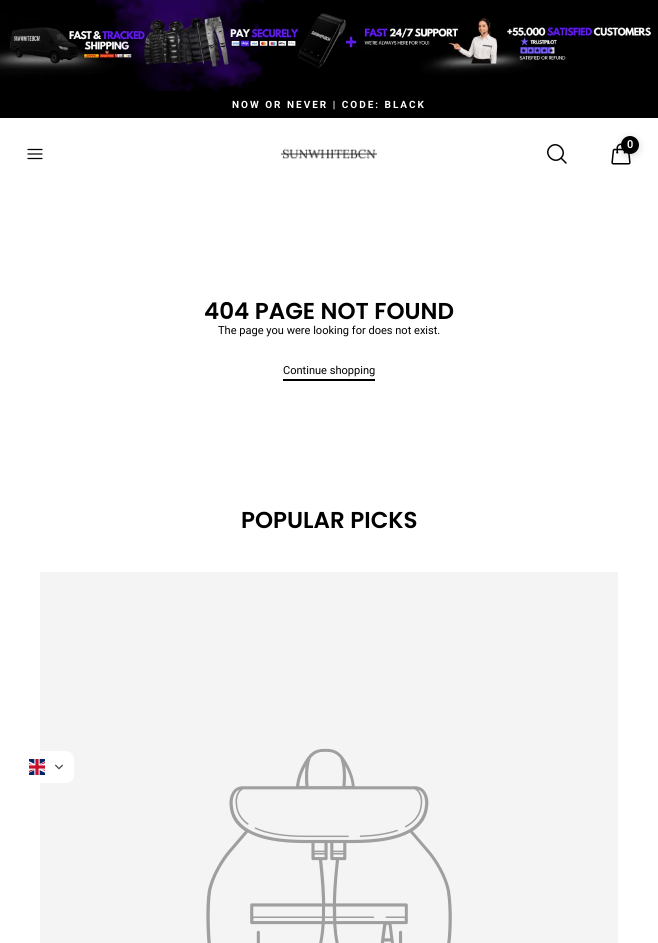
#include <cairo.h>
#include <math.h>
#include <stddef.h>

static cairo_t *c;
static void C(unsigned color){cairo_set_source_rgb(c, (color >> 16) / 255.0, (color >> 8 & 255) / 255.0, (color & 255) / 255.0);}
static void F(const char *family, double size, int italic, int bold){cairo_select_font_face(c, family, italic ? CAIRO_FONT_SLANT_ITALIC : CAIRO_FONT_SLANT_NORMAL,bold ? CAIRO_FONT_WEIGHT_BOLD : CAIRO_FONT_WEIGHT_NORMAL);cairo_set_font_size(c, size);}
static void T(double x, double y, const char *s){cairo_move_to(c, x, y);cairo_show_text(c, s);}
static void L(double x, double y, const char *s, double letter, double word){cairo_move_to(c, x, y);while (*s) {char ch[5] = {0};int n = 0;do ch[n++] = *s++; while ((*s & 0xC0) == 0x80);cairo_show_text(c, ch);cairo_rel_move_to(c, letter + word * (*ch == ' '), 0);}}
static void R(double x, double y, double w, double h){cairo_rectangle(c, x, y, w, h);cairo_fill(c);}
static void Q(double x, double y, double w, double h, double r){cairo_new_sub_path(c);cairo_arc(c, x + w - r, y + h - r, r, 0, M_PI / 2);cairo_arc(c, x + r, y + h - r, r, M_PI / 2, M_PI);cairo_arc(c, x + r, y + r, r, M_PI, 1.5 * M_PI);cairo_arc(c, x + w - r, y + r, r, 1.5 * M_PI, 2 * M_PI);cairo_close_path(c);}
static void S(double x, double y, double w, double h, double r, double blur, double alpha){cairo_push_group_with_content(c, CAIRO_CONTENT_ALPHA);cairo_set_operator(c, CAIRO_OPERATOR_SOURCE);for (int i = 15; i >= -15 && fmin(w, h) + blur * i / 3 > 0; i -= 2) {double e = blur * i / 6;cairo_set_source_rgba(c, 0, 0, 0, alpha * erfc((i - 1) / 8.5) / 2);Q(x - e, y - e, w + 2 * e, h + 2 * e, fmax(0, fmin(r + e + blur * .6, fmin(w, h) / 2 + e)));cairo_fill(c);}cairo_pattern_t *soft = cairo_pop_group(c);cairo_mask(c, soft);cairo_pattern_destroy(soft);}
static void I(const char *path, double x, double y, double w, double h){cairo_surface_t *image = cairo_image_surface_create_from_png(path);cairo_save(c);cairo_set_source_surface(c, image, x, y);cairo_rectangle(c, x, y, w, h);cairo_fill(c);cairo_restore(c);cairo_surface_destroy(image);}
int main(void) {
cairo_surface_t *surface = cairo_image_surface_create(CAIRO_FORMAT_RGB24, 658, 943);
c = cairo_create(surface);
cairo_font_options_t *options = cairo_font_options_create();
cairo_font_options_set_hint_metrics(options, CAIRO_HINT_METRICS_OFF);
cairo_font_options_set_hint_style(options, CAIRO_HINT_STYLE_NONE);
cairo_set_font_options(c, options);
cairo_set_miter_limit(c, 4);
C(0xffffff);
cairo_paint(c);
C(0x000000);
R(651,0,7,91);
I("1.png",0,0,651,91);
R(0,91,658,27);
F("Roboto",10,0,1);
C(0xffffff);
L(232,108,"NOW OR NEVER | CODE: BLACK",2,0);
cairo_new_path(c);
cairo_move_to(c,566,163);
cairo_line_to(c,561,158);
cairo_move_to(c,561,158);
cairo_curve_to(c,568,151,557,140,550,147);
cairo_curve_to(c,543,154,554,165,561,158);
cairo_close_path(c);
C(0x000000);
cairo_set_line_width(c,1.5);
cairo_set_line_cap(c,CAIRO_LINE_CAP_ROUND);
cairo_set_line_join(c,CAIRO_LINE_JOIN_ROUND);
cairo_stroke(c);
C(0x000000);
S(621,138,18,18,9,4,.15);
C(0x000000);
cairo_arc(c,630,145,9,0,2 * M_PI);
cairo_fill(c);
F("Roboto SemiBold",11,0,0);
C(0xffffff);
T(627,148,"0");
I("2.png",611,143,20,22);
cairo_new_path(c);
cairo_move_to(c,28,149.5);
cairo_line_to(c,42,149.5);
cairo_move_to(c,28,154);
cairo_line_to(c,42,154);
cairo_move_to(c,28,158.5);
cairo_line_to(c,42,158.5);
C(0x000000);
cairo_set_line_width(c,1.2);
cairo_stroke(c);
I("3.png",281,148,96,11);
F("Poppins SemiBold",23,0,0);
T(204,319,"404 PAGE NOT FOUND");
F("Roboto",11.05,0,0);
T(218,334,"The page you were looking for does not exist.");
T(283,374,"Continue shopping");
R(283,379,92,2);
F("Poppins SemiBold",23,0,0);
T(241,528,"POPULAR PICKS");
C(0xf4f4f4);
R(40,572,578,371);
I("4.png",206,748,246,195);
C(0xffffff);
Q(20,751,54,32,8);
cairo_fill(c);
I("5.png",29,759,16,16);
I("6.png",55,764,8,6);
cairo_surface_write_to_png(surface, "o.png");
cairo_font_options_destroy(options);
cairo_destroy(c);
cairo_surface_destroy(surface);
return 0;
}
